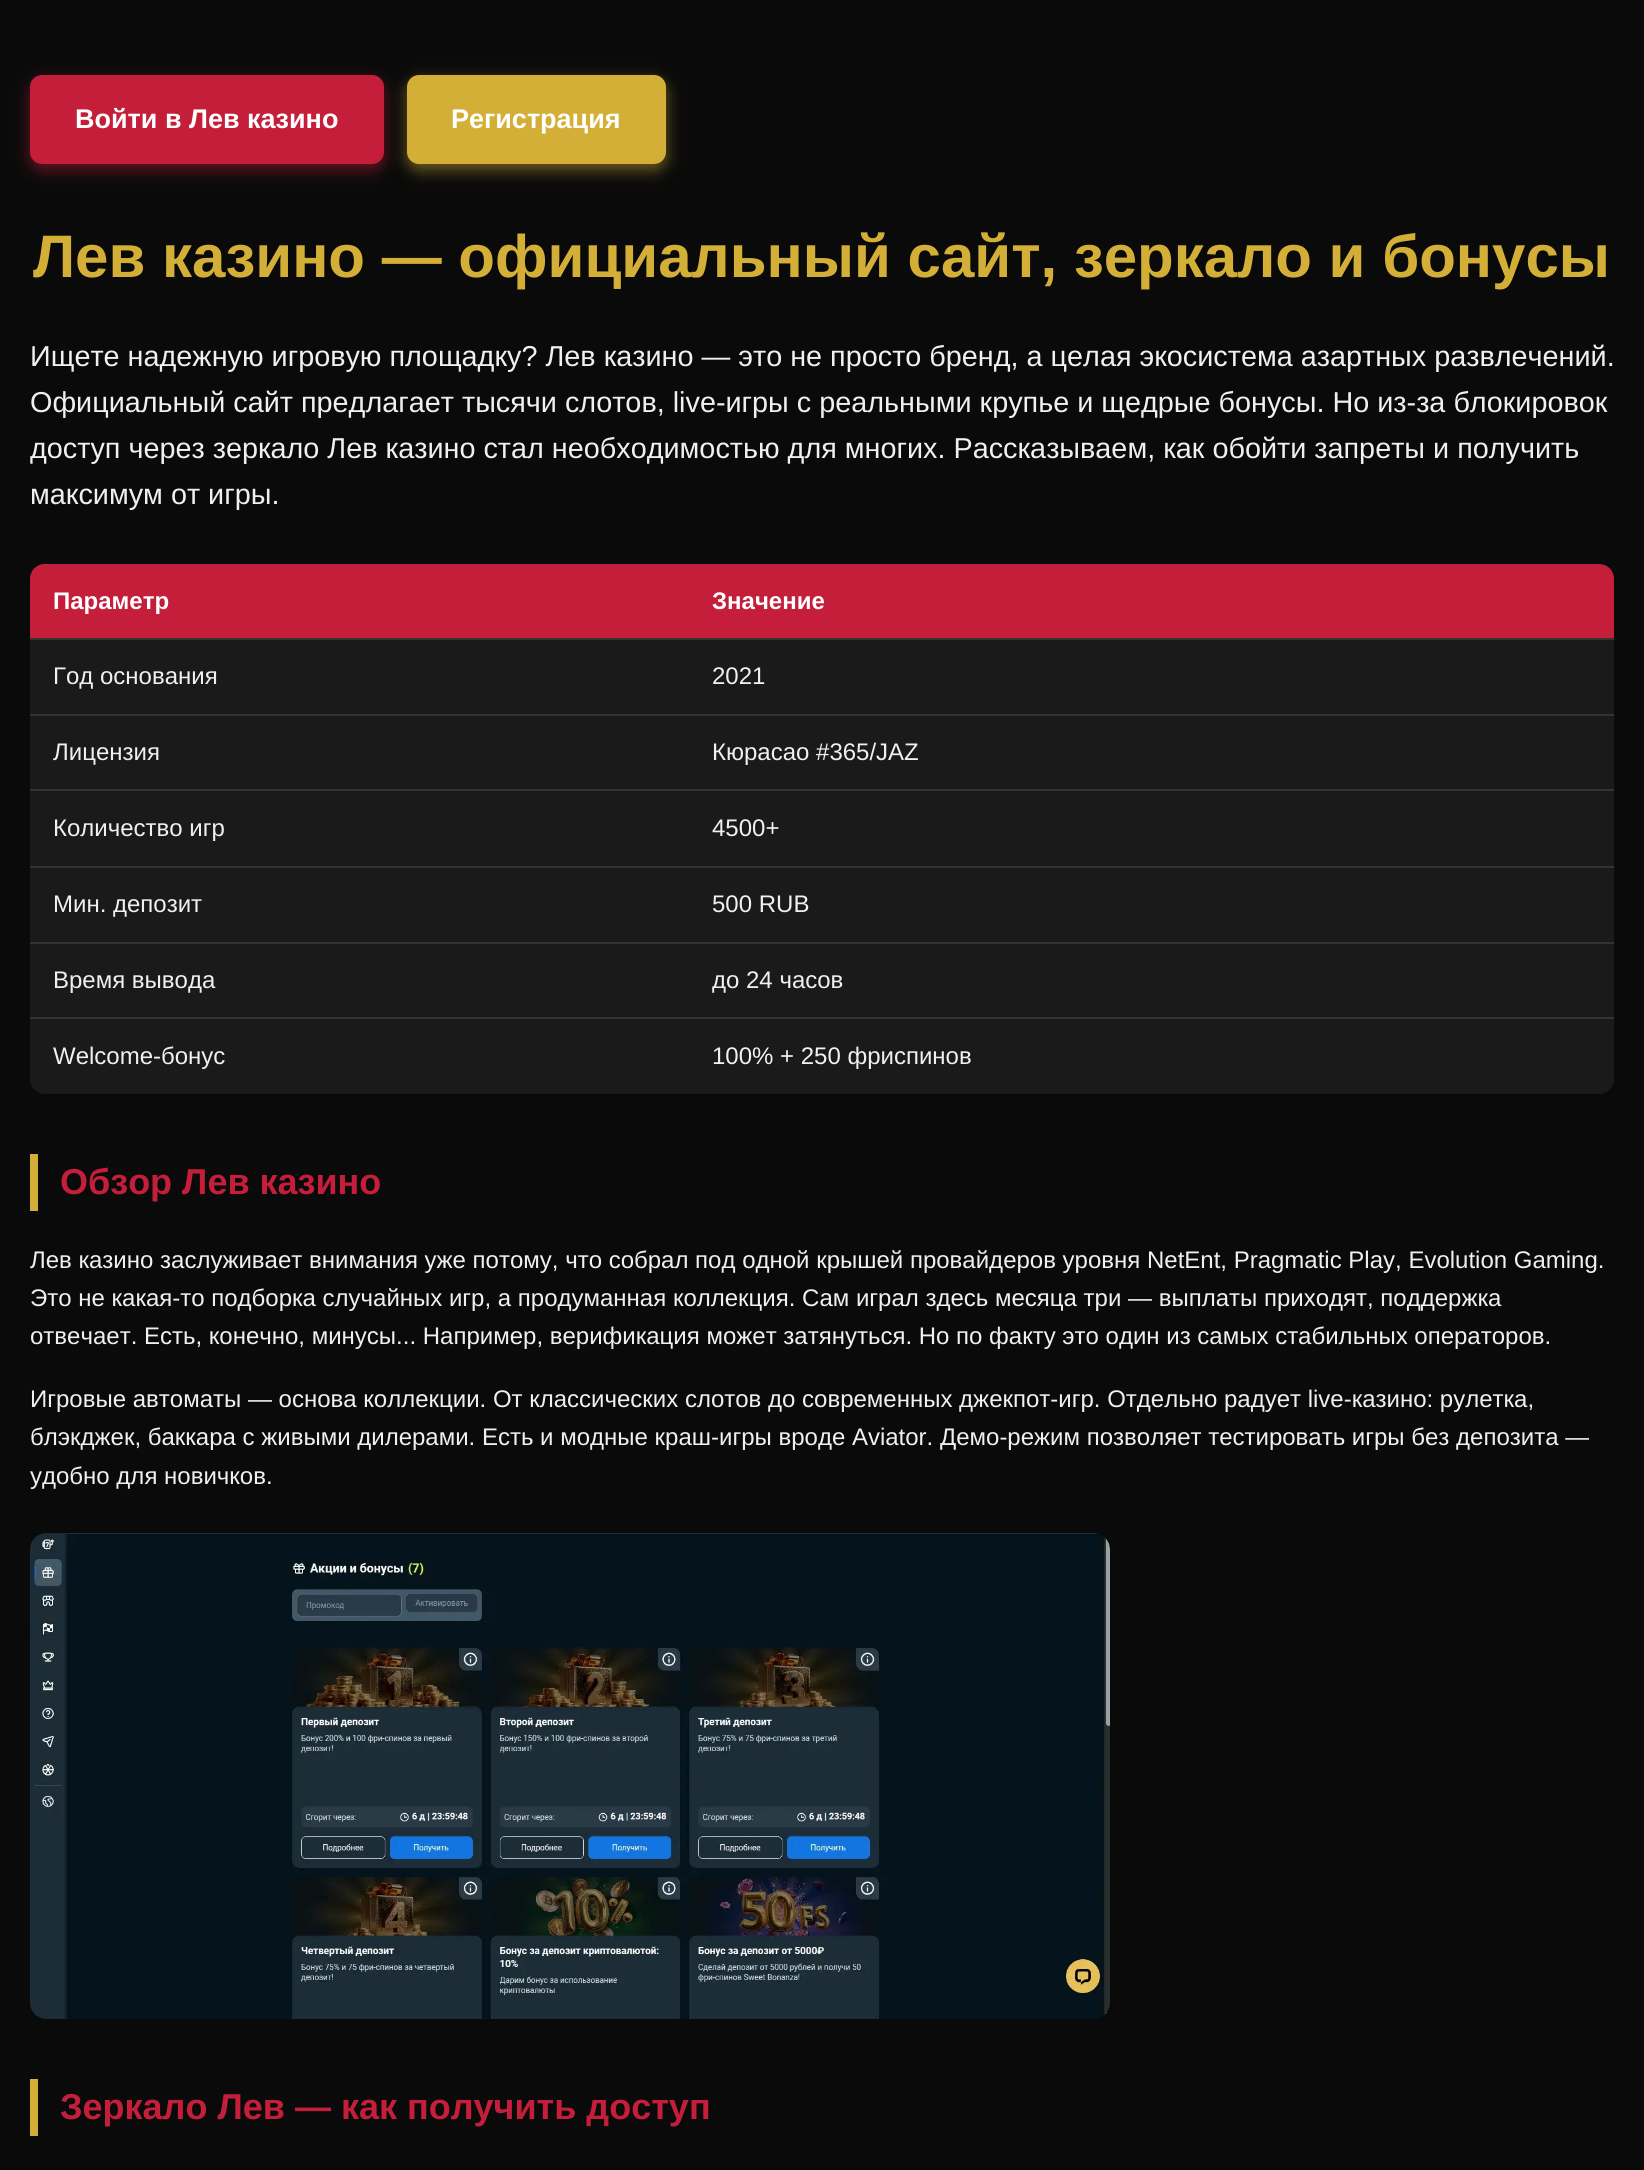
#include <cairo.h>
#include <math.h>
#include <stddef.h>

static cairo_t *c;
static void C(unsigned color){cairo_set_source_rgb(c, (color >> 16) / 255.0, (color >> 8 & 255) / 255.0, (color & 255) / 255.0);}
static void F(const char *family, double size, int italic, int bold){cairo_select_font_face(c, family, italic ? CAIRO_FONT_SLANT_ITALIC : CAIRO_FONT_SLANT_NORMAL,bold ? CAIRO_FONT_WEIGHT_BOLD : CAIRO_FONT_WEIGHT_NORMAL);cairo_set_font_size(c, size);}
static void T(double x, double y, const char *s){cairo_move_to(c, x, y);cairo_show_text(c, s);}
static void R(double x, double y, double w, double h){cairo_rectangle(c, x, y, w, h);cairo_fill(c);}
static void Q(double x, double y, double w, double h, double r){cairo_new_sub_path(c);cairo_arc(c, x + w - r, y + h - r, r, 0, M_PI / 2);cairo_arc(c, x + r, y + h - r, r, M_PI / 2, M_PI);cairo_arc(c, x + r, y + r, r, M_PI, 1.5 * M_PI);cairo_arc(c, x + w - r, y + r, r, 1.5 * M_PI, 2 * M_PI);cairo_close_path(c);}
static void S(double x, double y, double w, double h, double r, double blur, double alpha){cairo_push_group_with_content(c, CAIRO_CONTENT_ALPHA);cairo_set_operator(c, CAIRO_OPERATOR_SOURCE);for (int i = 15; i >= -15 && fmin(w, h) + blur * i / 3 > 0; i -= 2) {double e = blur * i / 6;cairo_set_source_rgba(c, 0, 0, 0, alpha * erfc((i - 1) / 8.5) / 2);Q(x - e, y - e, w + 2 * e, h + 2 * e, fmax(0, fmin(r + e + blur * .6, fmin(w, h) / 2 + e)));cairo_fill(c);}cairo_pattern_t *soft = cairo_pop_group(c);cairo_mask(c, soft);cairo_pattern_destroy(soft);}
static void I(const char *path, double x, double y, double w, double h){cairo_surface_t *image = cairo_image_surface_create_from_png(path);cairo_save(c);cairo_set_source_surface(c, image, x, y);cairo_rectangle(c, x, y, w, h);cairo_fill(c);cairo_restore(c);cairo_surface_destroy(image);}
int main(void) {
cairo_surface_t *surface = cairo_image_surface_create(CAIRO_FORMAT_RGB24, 1644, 2170);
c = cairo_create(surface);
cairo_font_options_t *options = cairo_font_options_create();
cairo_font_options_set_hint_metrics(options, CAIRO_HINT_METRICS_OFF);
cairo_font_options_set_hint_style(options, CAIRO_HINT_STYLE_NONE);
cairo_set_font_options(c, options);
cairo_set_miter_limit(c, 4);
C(0x0a0a0a);
cairo_paint(c);
C(0xc41e3a);
S(30,81,354,89,12,7.5,.5);
C(0xc41e3a);
Q(30,75,354,89,12);
cairo_fill(c);
F("Liberation Sans",27,0,1);
C(0xffffff);
T(75,128,"Войти в Лев казино");
C(0xd4af37);
S(407,81,259,89,12,7.5,.5);
C(0xd4af37);
Q(407,75,259,89,12);
cairo_fill(c);
C(0xffffff);
T(451,128,"Регистрация");
F("Liberation Sans",60,0,1);
C(0xd4af37);
T(33,277,"Лев казино — официальный сайт, зеркало и бонусы");
F("Liberation Sans",28.8,0,0);
C(0xf0f0f0);
T(30,366,"Ищете надежную игровую площадку? Лев казино — это не просто бренд, а целая экосистема азартных развлечений.");
T(30,412,"Официальный сайт предлагает тысячи слотов, live-игры с реальными крупье и щедрые бонусы. Но из-за блокировок");
T(30,458,"доступ через зеркало Лев казино стал необходимостью для многих. Рассказываем, как обойти запреты и получить");
T(30,504,"максимум от игры.");
C(0x1a1a1a);
Q(30,564,1584,530,15);
cairo_fill(c);
C(0xc41e3a);
cairo_new_path(c);
cairo_move_to(c,45,564);
cairo_line_to(c,690,564);
cairo_line_to(c,690,639);
cairo_line_to(c,30,639);
cairo_line_to(c,30,579);
cairo_curve_to(c,30,570.5,36.5,564,45,564);
cairo_close_path(c);
cairo_fill(c);
F("Liberation Sans",24,0,1);
C(0xffffff);
T(53,609,"Параметр");
C(0xc41e3a);
cairo_new_path(c);
cairo_move_to(c,690,564);
cairo_line_to(c,1599,564);
cairo_curve_to(c,1607.5,564,1614,570.5,1614,579);
cairo_line_to(c,1614,639);
cairo_line_to(c,690,639);
cairo_close_path(c);
cairo_fill(c);
C(0x333333);
R(30,638,1584,2);
C(0xffffff);
T(712,609,"Значение");
F("Liberation Sans",24,0,0);
C(0xf0f0f0);
T(53,684,"Год основания");
C(0x333333);
R(30,714,1584,2);
C(0xf0f0f0);
T(712,684,"2021");
T(53,760,"Лицензия");
C(0x333333);
R(30,789,1584,2);
C(0xf0f0f0);
T(712,760,"Кюрасао #365/JAZ");
T(53,836,"Количество игр");
C(0x333333);
R(30,866,1584,2);
C(0xf0f0f0);
T(712,836,"4500+");
T(53,912,"Мин. депозит");
C(0x333333);
R(30,942,1584,2);
C(0xf0f0f0);
T(712,912,"500 RUB");
T(53,988,"Время вывода");
C(0x333333);
R(30,1017,1584,2);
C(0xf0f0f0);
T(712,988,"до 24 часов");
T(53,1064,"Welcome-бонус");
T(712,1064,"100% + 250 фриспинов");
C(0xd4af37);
R(30,1154,8,57);
F("Liberation Sans",36,0,1);
C(0xc41e3a);
T(60,1194,"Обзор Лев казино");
F("Liberation Sans",24,0,0);
C(0xf0f0f0);
T(30,1268,"Лев казино заслуживает внимания уже потому, что собрал под одной крышей провайдеров уровня NetEnt, Pragmatic Play, Evolution Gaming.");
T(30,1306,"Это не какая-то подборка случайных игр, а продуманная коллекция. Сам играл здесь месяца три — выплаты приходят, поддержка");
T(30,1344,"отвечает. Есть, конечно, минусы... Например, верификация может затянуться. Но по факту это один из самых стабильных операторов.");
T(30,1407,"Игровые автоматы — основа коллекции. От классических слотов до современных джекпот-игр. Отдельно радует live-казино: рулетка,");
T(30,1445,"блэкджек, баккара с живыми дилерами. Есть и модные краш-игры вроде Aviator. Демо-режим позволяет тестировать игры без депозита —");
T(30,1484,"удобно для новичков.");
I("1.png",30,1533,1080,486);
C(0xd4af37);
R(30,2079,8,57);
F("Liberation Sans",36,0,1);
C(0xc41e3a);
T(60,2119,"Зеркало Лев — как получить доступ");
cairo_surface_write_to_png(surface, "o.png");
cairo_font_options_destroy(options);
cairo_destroy(c);
cairo_surface_destroy(surface);
return 0;
}
